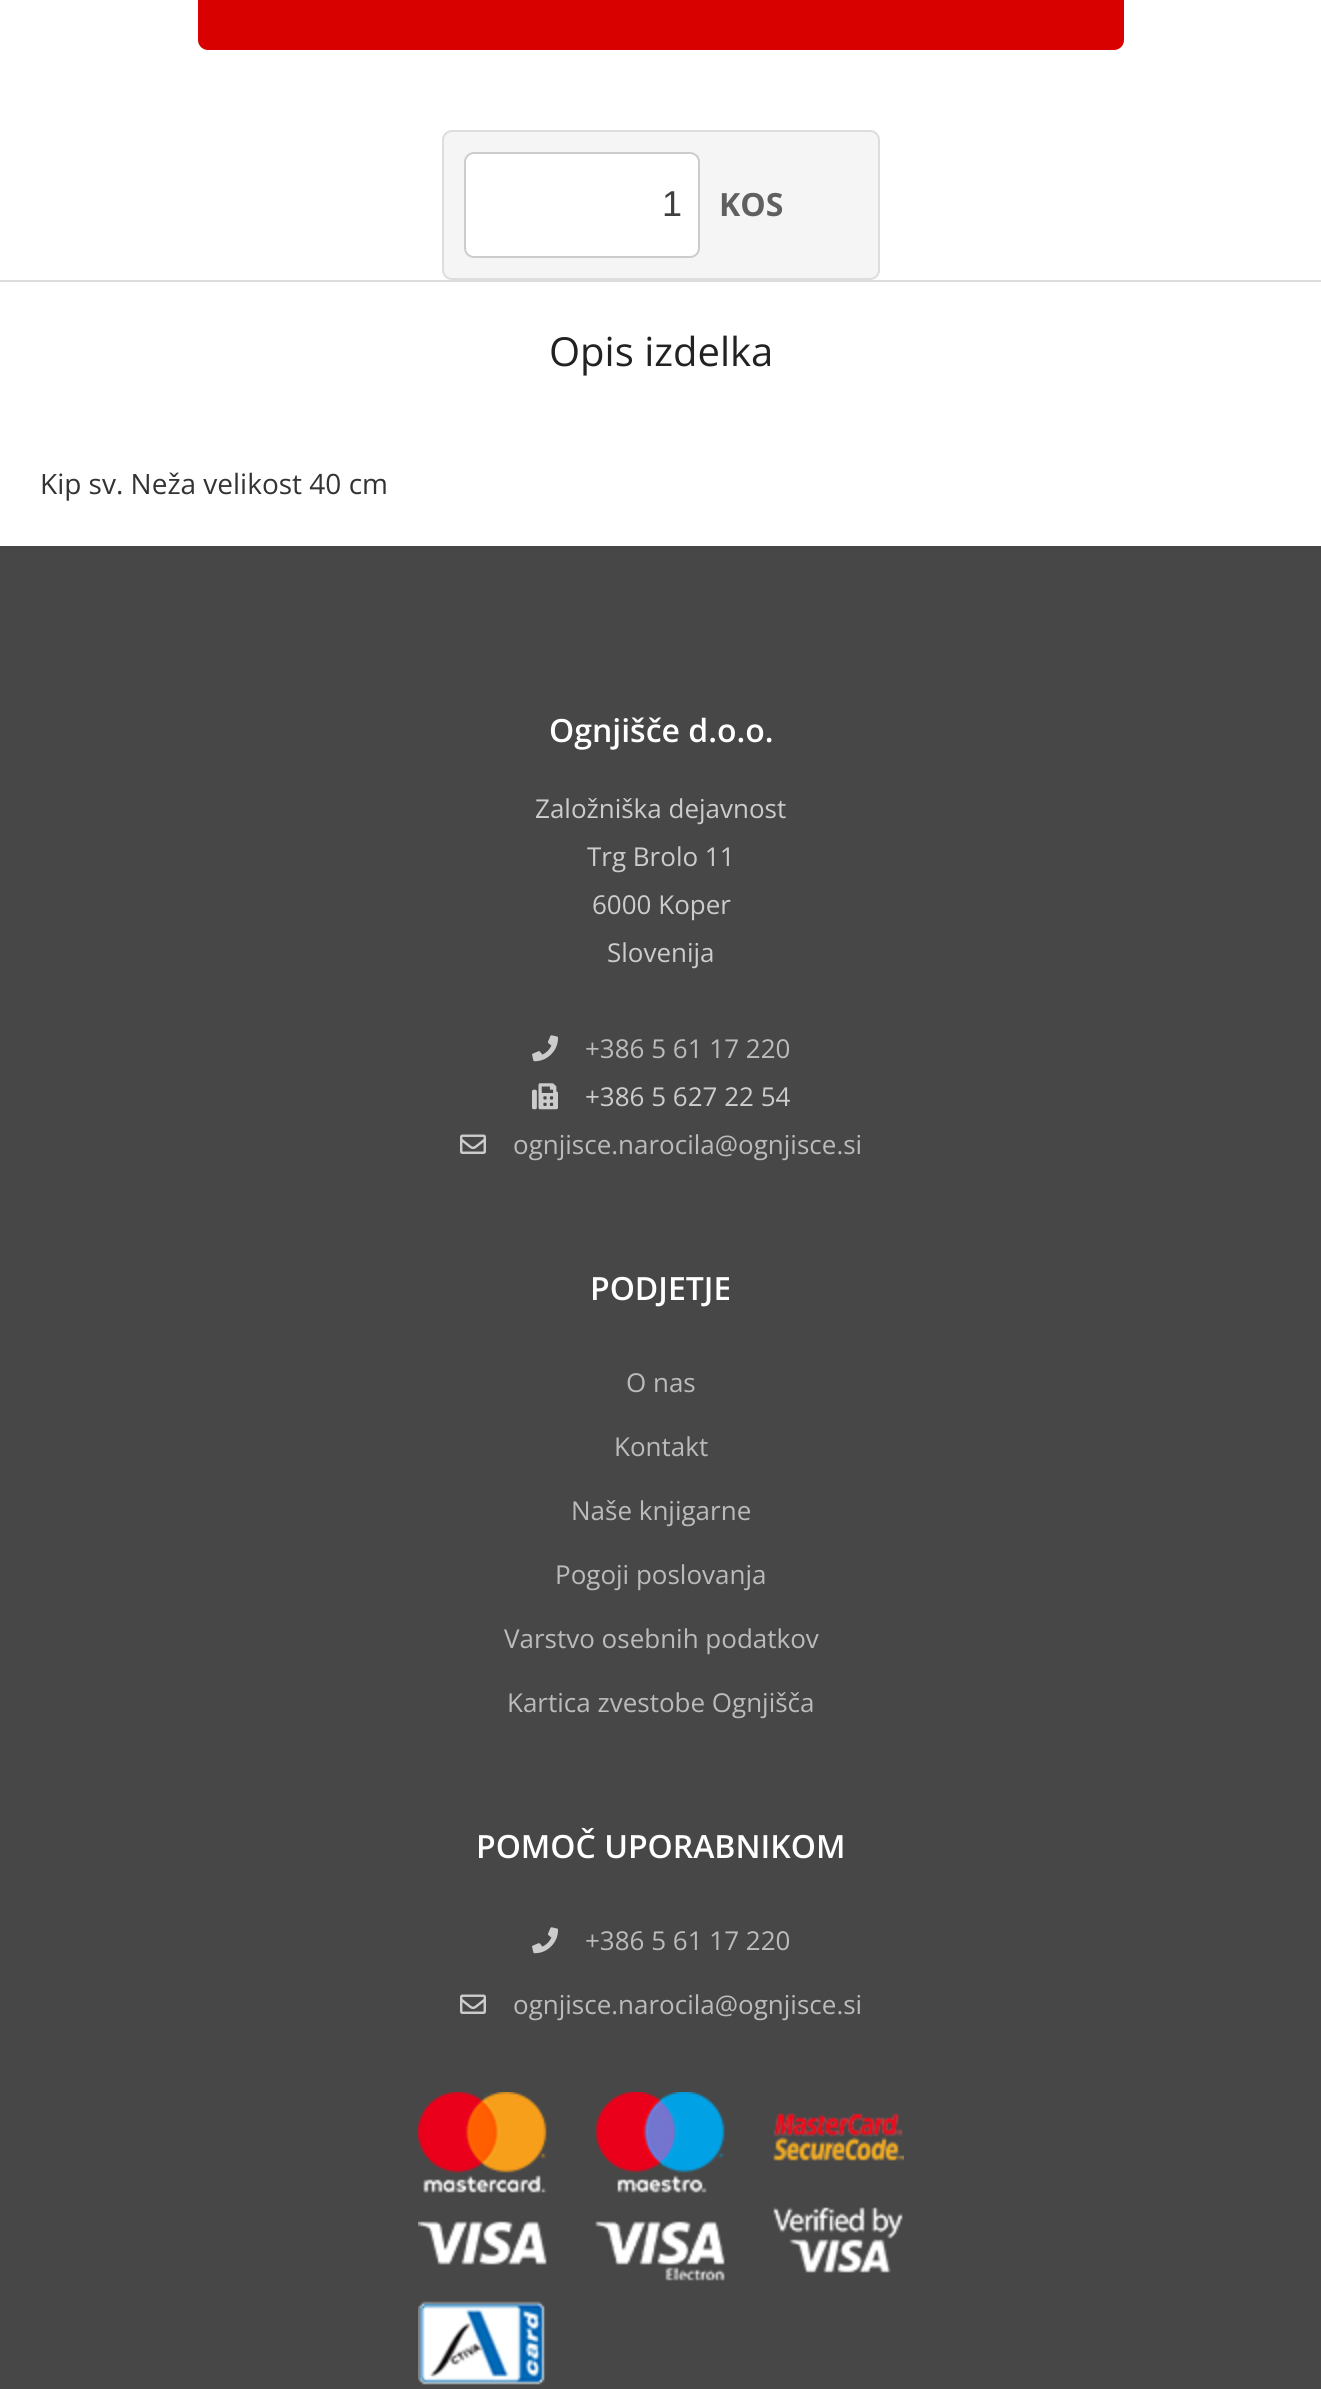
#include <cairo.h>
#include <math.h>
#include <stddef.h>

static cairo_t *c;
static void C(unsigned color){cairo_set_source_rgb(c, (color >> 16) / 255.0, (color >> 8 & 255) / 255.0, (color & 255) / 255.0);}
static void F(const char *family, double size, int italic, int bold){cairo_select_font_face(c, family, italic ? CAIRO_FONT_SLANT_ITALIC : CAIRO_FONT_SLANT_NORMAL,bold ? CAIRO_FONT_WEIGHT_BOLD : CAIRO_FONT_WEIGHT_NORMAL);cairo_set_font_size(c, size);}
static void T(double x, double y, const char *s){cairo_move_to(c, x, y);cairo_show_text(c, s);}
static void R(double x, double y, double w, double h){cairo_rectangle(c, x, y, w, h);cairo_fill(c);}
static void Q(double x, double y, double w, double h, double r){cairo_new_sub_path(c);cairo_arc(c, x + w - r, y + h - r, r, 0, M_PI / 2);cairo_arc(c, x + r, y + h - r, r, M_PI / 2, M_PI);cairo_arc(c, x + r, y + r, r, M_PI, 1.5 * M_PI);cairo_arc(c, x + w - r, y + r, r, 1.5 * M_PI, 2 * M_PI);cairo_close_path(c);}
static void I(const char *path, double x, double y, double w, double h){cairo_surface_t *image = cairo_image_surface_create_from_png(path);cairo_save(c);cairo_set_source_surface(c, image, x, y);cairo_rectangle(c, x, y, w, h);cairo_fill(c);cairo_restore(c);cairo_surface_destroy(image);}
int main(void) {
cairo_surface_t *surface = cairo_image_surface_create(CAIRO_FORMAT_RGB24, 1321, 2389);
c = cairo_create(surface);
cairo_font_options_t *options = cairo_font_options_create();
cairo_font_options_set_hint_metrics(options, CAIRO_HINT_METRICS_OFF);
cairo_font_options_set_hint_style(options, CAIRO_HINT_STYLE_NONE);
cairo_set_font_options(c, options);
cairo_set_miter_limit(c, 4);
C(0xffffff);
cairo_paint(c);
C(0xd90000);
Q(198,-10,926,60,10);
cairo_fill(c);
C(0xf5f5f5);
Q(443,131,436,148,9);
cairo_fill_preserve(c);
C(0xdddddd);
cairo_stroke(c);
C(0xffffff);
Q(465,153,234,104,9);
cairo_fill_preserve(c);
C(0xcccccc);
cairo_stroke(c);
F("Liberation Sans",36,0,0);
C(0x404040);
T(662,216,"1");
F("Open Sans",32,0,1);
C(0x606060);
T(719,216,"KOS");
C(0xdddddd);
R(0,280,1321,2);
F("Open Sans",40,0,0);
C(0x222222);
T(549,366,"Opis izdelka");
F("Open Sans",28,0,0);
C(0x333333);
T(40,494,"Kip sv. Neža velikost 40 cm");
C(0x474747);
R(0,546,1321,1843);
F("Open Sans SemiBold",32,0,0);
C(0xffffff);
T(549,742,"Ognjišče d.o.o.");
F("Open Sans",26,0,0);
C(0xcccccc);
T(535,818,"Založniška dejavnost");
T(587,866,"Trg Brolo 11");
T(592,914,"6000 Koper");
T(607,962,"Slovenija");
I("1.png",532,1035,26,27);
C(0xbbbbbb);
T(585,1058,"+386 5 61 17 220");
I("2.png",532,1083,26,27);
C(0xcccccc);
T(585,1106,"+386 5 627 22 54");
I("3.png",460,1134,26,20);
C(0xbbbbbb);
T(513,1154,"ognjisce.narocila@ognjisce.si");
F("Open Sans SemiBold",32,0,0);
C(0xffffff);
T(590,1300,"PODJETJE");
F("Open Sans",26,0,0);
C(0xbbbbbb);
T(626,1392,"O nas");
T(614,1456,"Kontakt");
T(571,1520,"Naše knjigarne");
T(555,1584,"Pogoji poslovanja");
T(504,1648,"Varstvo osebnih podatkov");
T(507,1712,"Kartica zvestobe Ognjišča");
F("Open Sans SemiBold",32,0,0);
C(0xffffff);
T(476,1858,"POMOČ UPORABNIKOM");
I("1.png",532,1927,26,27);
F("Open Sans",26,0,0);
C(0xbbbbbb);
T(585,1950,"+386 5 61 17 220");
I("3.png",460,1994,26,20);
T(513,2014,"ognjisce.narocila@ognjisce.si");
I("4.png",418,2092,486,293);
cairo_surface_write_to_png(surface, "o.png");
cairo_font_options_destroy(options);
cairo_destroy(c);
cairo_surface_destroy(surface);
return 0;
}
